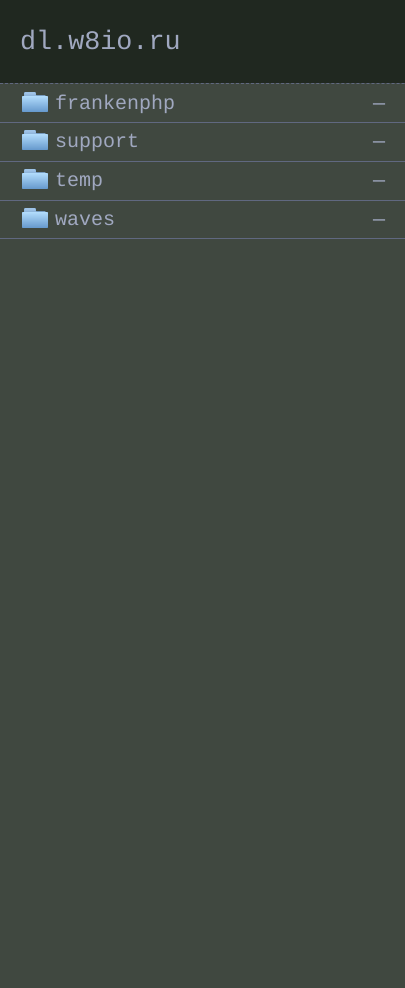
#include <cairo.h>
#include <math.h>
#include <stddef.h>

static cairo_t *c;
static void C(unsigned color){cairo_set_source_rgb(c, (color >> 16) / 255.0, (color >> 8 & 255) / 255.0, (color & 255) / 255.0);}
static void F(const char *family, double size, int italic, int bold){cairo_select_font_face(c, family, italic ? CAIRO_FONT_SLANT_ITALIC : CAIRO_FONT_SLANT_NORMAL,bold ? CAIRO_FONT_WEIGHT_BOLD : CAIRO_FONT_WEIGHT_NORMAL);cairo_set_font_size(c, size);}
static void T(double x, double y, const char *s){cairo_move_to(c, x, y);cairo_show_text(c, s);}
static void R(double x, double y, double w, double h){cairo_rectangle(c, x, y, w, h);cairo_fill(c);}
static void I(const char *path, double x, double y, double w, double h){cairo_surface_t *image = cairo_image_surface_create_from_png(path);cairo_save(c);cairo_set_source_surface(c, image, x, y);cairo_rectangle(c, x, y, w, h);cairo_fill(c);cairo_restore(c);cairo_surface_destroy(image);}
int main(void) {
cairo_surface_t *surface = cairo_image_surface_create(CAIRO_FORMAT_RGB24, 405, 988);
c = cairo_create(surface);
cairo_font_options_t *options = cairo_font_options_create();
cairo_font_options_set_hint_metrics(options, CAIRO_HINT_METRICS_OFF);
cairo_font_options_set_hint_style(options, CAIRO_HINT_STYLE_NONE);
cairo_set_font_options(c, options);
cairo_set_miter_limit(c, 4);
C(0x404840);
cairo_paint(c);
C(0x202820);
R(0,0,405,83);
F("Liberation Mono",26.75,0,0);
C(0xa0a8c0);
T(20,49,"dl.w8io.ru");
cairo_new_path(c);
cairo_move_to(c,0,83.5);
cairo_line_to(c,405,83.5);
C(0x606880);
cairo_set_line_width(c,1);
cairo_set_dash(c,(double[]){3,2.02},2,0);
cairo_stroke(c);
R(0,122,405,1);
I("1.png",22,92,26,20);
F("Liberation Mono",20,0,0);
C(0xa0a8c0);
T(55,109,"frankenphp");
T(373,109,"—");
C(0x606880);
R(0,161,405,1);
I("1.png",22,130,26,20);
C(0xa0a8c0);
T(55,147,"support");
T(373,147,"—");
C(0x606880);
R(0,200,405,1);
I("1.png",22,169,26,20);
C(0xa0a8c0);
T(55,186,"temp");
T(373,186,"—");
C(0x606880);
R(0,238,405,1);
I("1.png",22,208,26,20);
C(0xa0a8c0);
T(55,225,"waves");
T(373,225,"—");
cairo_surface_write_to_png(surface, "o.png");
cairo_font_options_destroy(options);
cairo_destroy(c);
cairo_surface_destroy(surface);
return 0;
}
